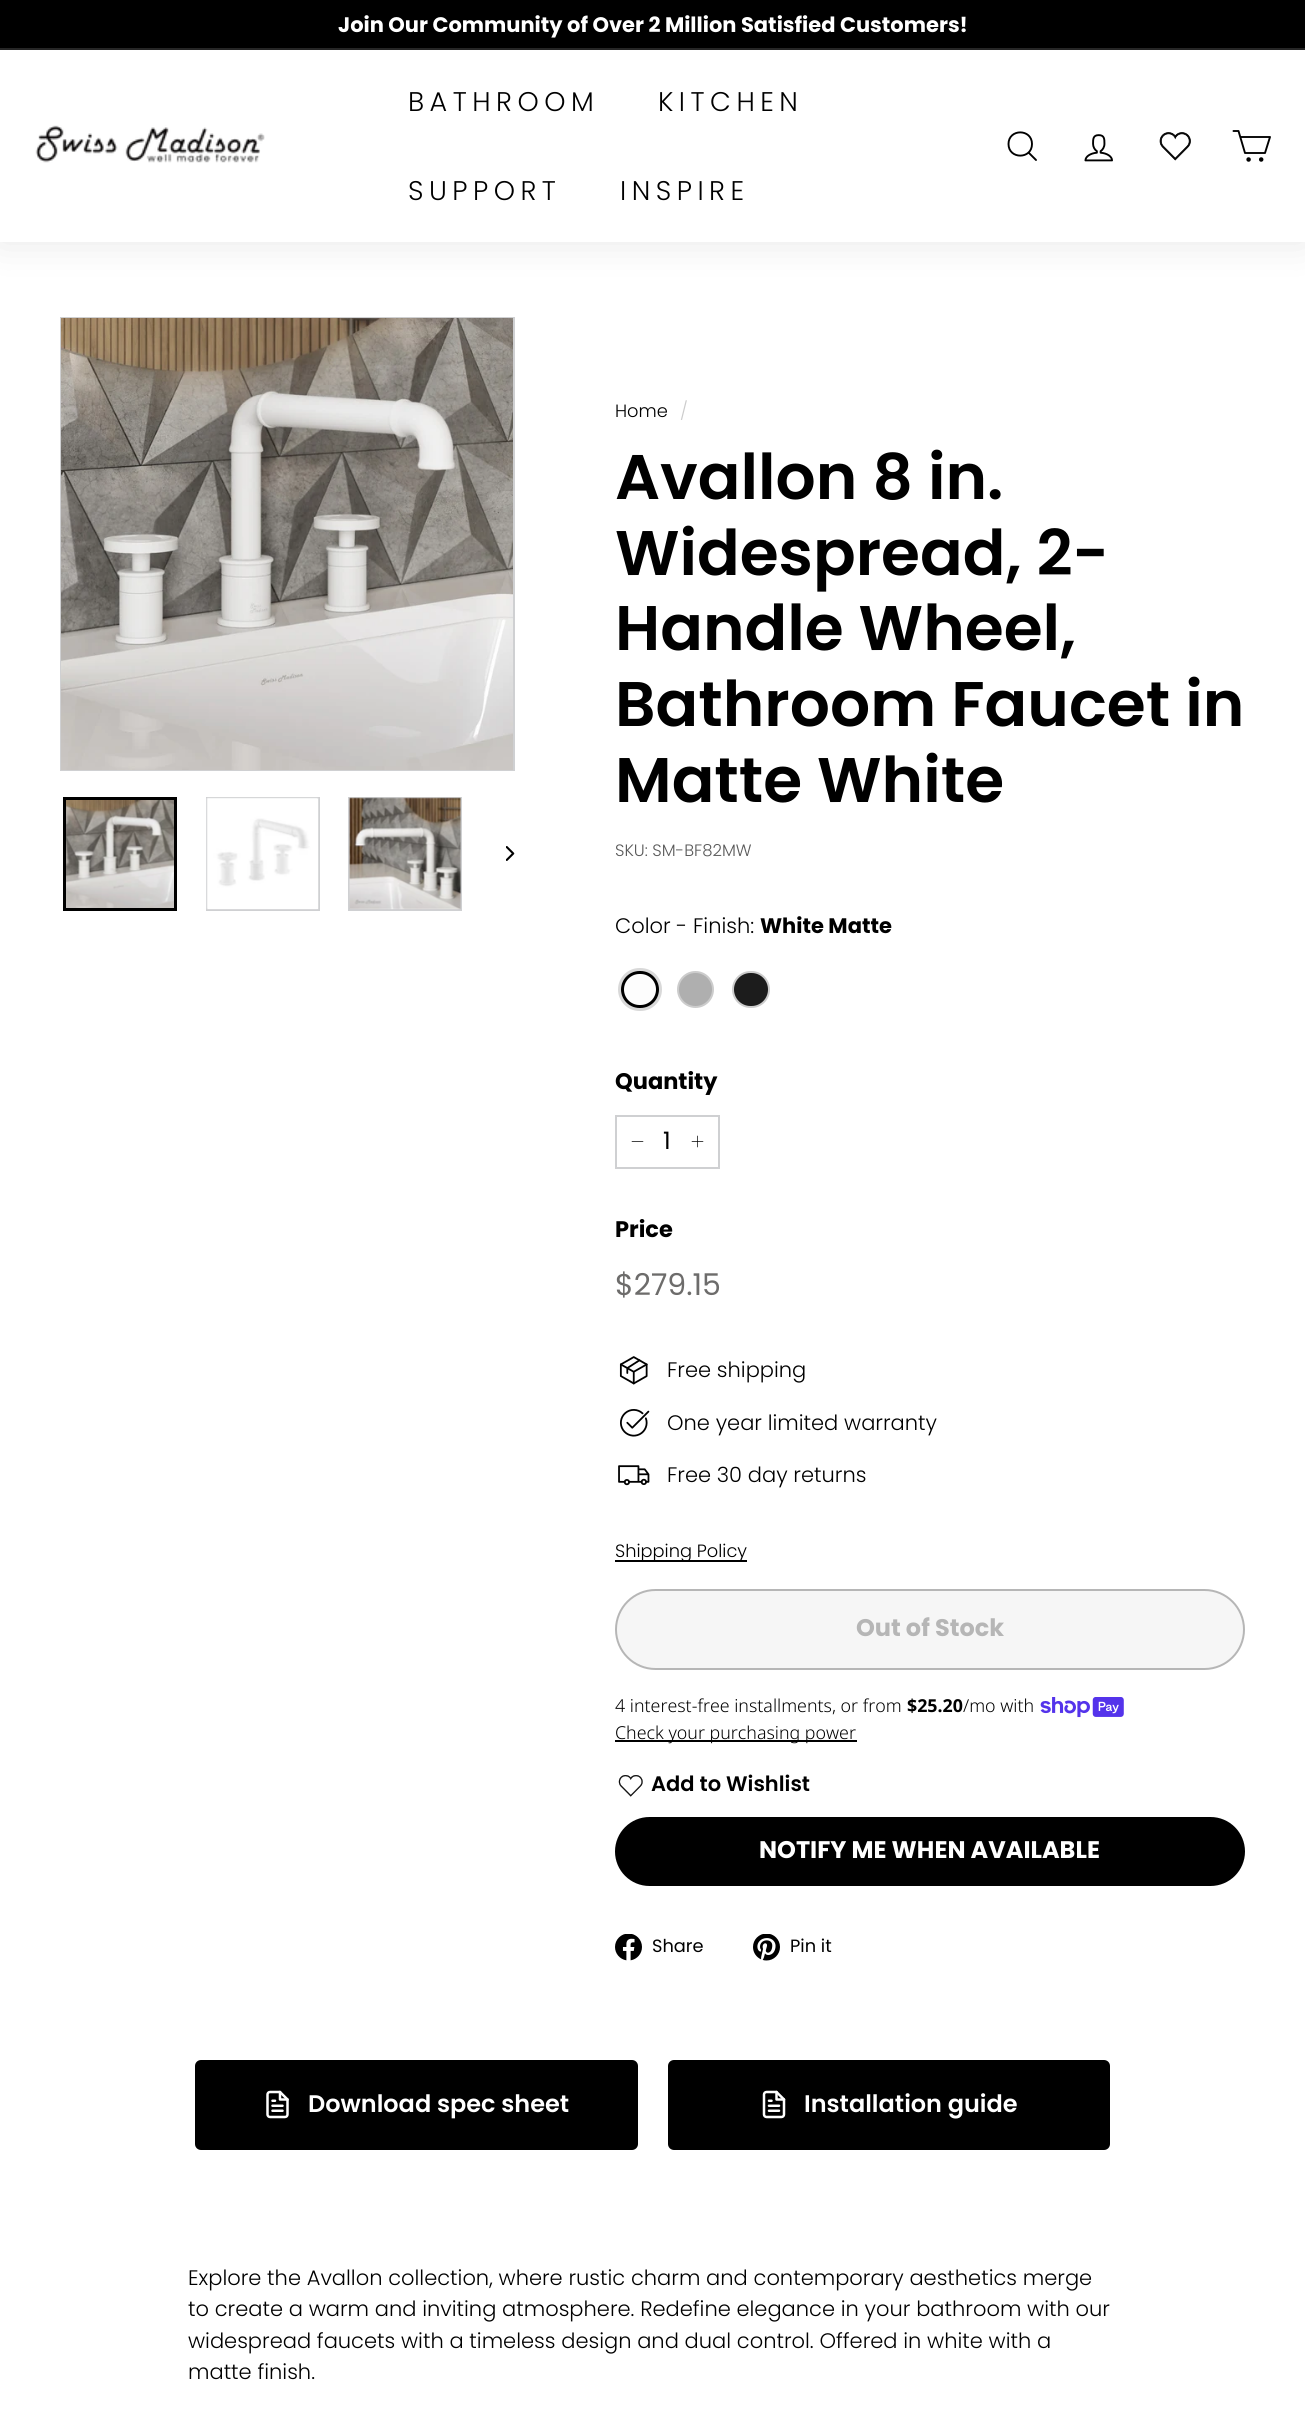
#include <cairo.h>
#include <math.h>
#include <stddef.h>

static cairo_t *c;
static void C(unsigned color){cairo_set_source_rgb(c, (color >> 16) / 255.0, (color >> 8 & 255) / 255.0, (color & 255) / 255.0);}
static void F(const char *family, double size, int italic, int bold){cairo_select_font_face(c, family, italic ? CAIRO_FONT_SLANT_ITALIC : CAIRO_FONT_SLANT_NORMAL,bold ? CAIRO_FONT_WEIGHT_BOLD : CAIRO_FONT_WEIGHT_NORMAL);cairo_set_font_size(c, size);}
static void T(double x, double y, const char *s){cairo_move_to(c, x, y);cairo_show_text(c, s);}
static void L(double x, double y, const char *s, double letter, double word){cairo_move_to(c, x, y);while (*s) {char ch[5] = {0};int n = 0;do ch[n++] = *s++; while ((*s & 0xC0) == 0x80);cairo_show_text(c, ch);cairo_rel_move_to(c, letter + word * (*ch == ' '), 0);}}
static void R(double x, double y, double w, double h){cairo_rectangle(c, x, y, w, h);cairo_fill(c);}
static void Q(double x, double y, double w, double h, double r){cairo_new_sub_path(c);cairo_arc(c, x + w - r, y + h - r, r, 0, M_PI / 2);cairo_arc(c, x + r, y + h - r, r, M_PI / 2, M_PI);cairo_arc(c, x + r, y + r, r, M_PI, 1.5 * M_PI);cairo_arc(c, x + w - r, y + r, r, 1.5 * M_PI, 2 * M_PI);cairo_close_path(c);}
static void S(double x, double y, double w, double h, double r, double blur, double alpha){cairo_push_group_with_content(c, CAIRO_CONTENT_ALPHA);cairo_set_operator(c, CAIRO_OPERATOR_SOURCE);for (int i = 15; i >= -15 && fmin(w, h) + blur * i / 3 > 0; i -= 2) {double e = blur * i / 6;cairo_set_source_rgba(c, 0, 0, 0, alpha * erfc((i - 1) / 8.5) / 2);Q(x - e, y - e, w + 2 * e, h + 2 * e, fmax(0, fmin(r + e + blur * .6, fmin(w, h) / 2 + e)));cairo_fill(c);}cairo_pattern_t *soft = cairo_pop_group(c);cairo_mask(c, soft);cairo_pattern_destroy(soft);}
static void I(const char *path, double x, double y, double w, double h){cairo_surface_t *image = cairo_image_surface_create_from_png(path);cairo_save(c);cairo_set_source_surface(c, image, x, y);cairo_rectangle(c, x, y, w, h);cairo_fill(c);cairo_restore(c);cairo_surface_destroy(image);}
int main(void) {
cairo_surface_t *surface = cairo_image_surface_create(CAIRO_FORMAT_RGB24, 1305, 2414);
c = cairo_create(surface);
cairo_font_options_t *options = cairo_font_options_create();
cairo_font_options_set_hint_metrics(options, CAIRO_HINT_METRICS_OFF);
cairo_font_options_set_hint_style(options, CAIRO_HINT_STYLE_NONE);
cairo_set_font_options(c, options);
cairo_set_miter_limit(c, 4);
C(0xffffff);
cairo_paint(c);
C(0x000000);
S(0,50,1305,192,0,19,.1);
C(0x000000);
R(0,0,1305,48);
F("Poppins",21,0,1);
C(0xffffff);
T(338,32,"Join Our Community of Over 2 Million Satisfied Customers!");
C(0x262626);
R(0,48,1305,2);
C(0xffffff);
R(0,50,1305,192);
I("1.png",35,125,230,38);
F("Poppins Light",27,0,0);
C(0x000000);
L(408,111,"BATHROOM",5.5,0);
L(658,111,"KITCHEN",5.5,0);
L(408,200,"SUPPORT",5.5,0);
L(620,200,"INSPIRE",5.5,0);
cairo_new_path(c);
cairo_move_to(c,1032,144);
cairo_curve_to(c,1032,159.5,1008.5,159.5,1008.5,144);
cairo_curve_to(c,1008.5,128.5,1032,128.5,1032,144);
cairo_close_path(c);
cairo_move_to(c,1036,160);
cairo_line_to(c,1028.5,152.5);
cairo_set_line_width(c,1.9);
cairo_set_line_cap(c,CAIRO_LINE_CAP_ROUND);
cairo_set_line_join(c,CAIRO_LINE_JOIN_ROUND);
cairo_stroke(c);
I("2.png",1084,134,29,28);
I("3.png",1159,132,32,29);
cairo_new_path(c);
cairo_move_to(c,1240.5,137);
cairo_line_to(c,1270,137);
cairo_line_to(c,1265,153);
cairo_line_to(c,1245,153);
cairo_line_to(c,1238.5,131);
cairo_line_to(c,1233.5,131);
cairo_stroke(c);
cairo_arc(c,1248.6,159.5,1.3,0,2 * M_PI);
cairo_fill_preserve(c);
cairo_set_line_cap(c,CAIRO_LINE_CAP_BUTT);
cairo_set_line_join(c,CAIRO_LINE_JOIN_MITER);
cairo_stroke(c);
cairo_arc(c,1261.2,159.5,1.3,0,2 * M_PI);
cairo_fill_preserve(c);
cairo_stroke(c);
cairo_rectangle(c,61,318,453,452);
C(0xcfd0d2);
cairo_set_line_width(c,2);
cairo_stroke(c);
I("4.png",61,318,452,452);
I("5.png",66,800,108,108);
cairo_rectangle(c,64.5,798.5,111,111);
C(0x000000);
cairo_set_line_width(c,3);
cairo_stroke(c);
cairo_rectangle(c,207,798,112,112);
C(0xcfd0d2);
cairo_set_line_width(c,2);
cairo_stroke(c);
I("6.png",206,797,113,113);
cairo_rectangle(c,349,798,112,112);
cairo_stroke(c);
I("7.png",349,797,112,113);
I("8.png",506,846,9,15);
F("Poppins Light",17.8,0,0);
C(0x000000);
T(615,417,"Home");
C(0xcccccc);
T(680,417,"/");
F("Poppins SemiBold",63,0,0);
C(0x000000);
T(615,499,"Avallon 8 in.");
T(615,575,"Widespread, 2-");
T(615,650,"Handle Wheel,");
T(615,726,"Bathroom Faucet in");
T(615,802,"Matte White");
F("Poppins Light",16.5,0,0);
C(0x595959);
T(615,856,"SKU: SM-BF82MW");
F("Poppins Light",21,0,0);
C(0x000000);
T(615,933,"Color - Finish:");
F("Poppins",21,0,1);
T(760,933,"White Matte");
Q(619.5,969.5,41,40,20);
C(0xd9d9d9);
cairo_set_line_width(c,3);
cairo_stroke(c);
C(0xfdfdfd);
Q(622.5,972.5,35,34,17);
cairo_fill_preserve(c);
C(0x000000);
cairo_stroke(c);
C(0xafafaf);
cairo_arc(c,695.5,989.5,17.5,0,2 * M_PI);
cairo_fill_preserve(c);
C(0xcccccc);
cairo_set_line_width(c,2);
cairo_stroke(c);
C(0x1c1c1c);
Q(733,972,36,35,17.5);
cairo_fill_preserve(c);
C(0xcccccc);
cairo_stroke(c);
F("Poppins",22.5,0,1);
C(0x000000);
T(615,1089,"Quantity");
cairo_rectangle(c,616,1116,103,52);
C(0xcfd0d2);
cairo_stroke(c);
cairo_new_path(c);
cairo_move_to(c,643,1141.5);
cairo_line_to(c,632,1141.5);
C(0x000000);
cairo_set_line_width(c,.7);
cairo_set_line_cap(c,CAIRO_LINE_CAP_ROUND);
cairo_set_line_join(c,CAIRO_LINE_JOIN_ROUND);
cairo_stroke(c);
F("Poppins",24,0,0);
T(663,1149,"1");
cairo_new_path(c);
cairo_move_to(c,697.5,1136);
cairo_line_to(c,697.5,1147);
cairo_move_to(c,703,1141.5);
cairo_line_to(c,692,1141.5);
cairo_stroke(c);
F("Poppins",22.5,0,1);
T(615,1237,"Price");
F("Poppins",30,0,0);
C(0x6d6c6b);
T(615,1295,"$279.15");
I("9.png",619,1356,29,29);
F("Poppins Light",21,0,0);
C(0x000000);
T(667,1377,"Free shipping");
I("10.png",620,1409,30,28);
T(667,1430,"One year limited warranty");
I("11.png",618,1465,32,21);
T(667,1482,"Free 30 day returns");
R(615,1560,132,2);
F("Poppins Light",17.8,0,0);
T(615,1557,"Shipping Policy");
C(0xf6f6f6);
Q(616,1590,628,79,39.5);
cairo_fill_preserve(c);
C(0xb6b6b6);
cairo_set_line_width(c,2);
cairo_set_line_cap(c,CAIRO_LINE_CAP_BUTT);
cairo_set_line_join(c,CAIRO_LINE_JOIN_MITER);
cairo_stroke(c);
F("Poppins",24,0,1);
T(856,1636,"Out of Stock");
F("Noto Sans Light",17.8,0,0);
C(0x000000);
T(615,1712,"4 interest-free installments, or from");
F("Noto Sans",17.8,0,1);
T(907,1712,"$25.20");
F("Noto Sans Light",17.8,0,0);
T(963,1712,"/mo with");
I("12.png",1040,1697,84,21);
R(615,1740,242,2);
T(615,1739,"Check your purchasing power");
I("13.png",618,1775,25,22);
F("Poppins SemiBold",21,0,0);
T(651,1791,"Add to Wishlist");
Q(615,1817,630,69,34.5);
cairo_fill(c);
F("Poppins",24,0,1);
C(0xffffff);
T(759,1858,"NOTIFY ME WHEN AVAILABLE");
I("14.png",615,1934,27,27);
F("Poppins",17.8,0,0);
C(0x000000);
T(652,1952,"Share");
I("15.png",753,1934,27,27);
T(790,1952,"Pin it");
Q(196.5,2061.5,440,87,4.5);
cairo_fill_preserve(c);
cairo_set_line_width(c,3);
cairo_stroke(c);
I("16.png",266,2090,23,29);
F("Poppins SemiBold",24,0,0);
C(0xffffff);
T(308,2112,"Download spec sheet");
C(0x000000);
Q(669.5,2061.5,439,87,4.5);
cairo_fill_preserve(c);
cairo_stroke(c);
I("17.png",762,2090,24,29);
C(0xffffff);
T(804,2112,"Installation guide");
F("Poppins Light",21,0,0);
C(0x000000);
T(188,2285,"Explore the Avallon collection, where rustic charm and contemporary aesthetics merge");
T(188,2316,"to create a warm and inviting atmosphere. Redefine elegance in your bathroom with our");
T(188,2348,"widespread faucets with a timeless design and dual control. Offered in white with a");
T(188,2379,"matte finish.");
cairo_surface_write_to_png(surface, "o.png");
cairo_font_options_destroy(options);
cairo_destroy(c);
cairo_surface_destroy(surface);
return 0;
}
